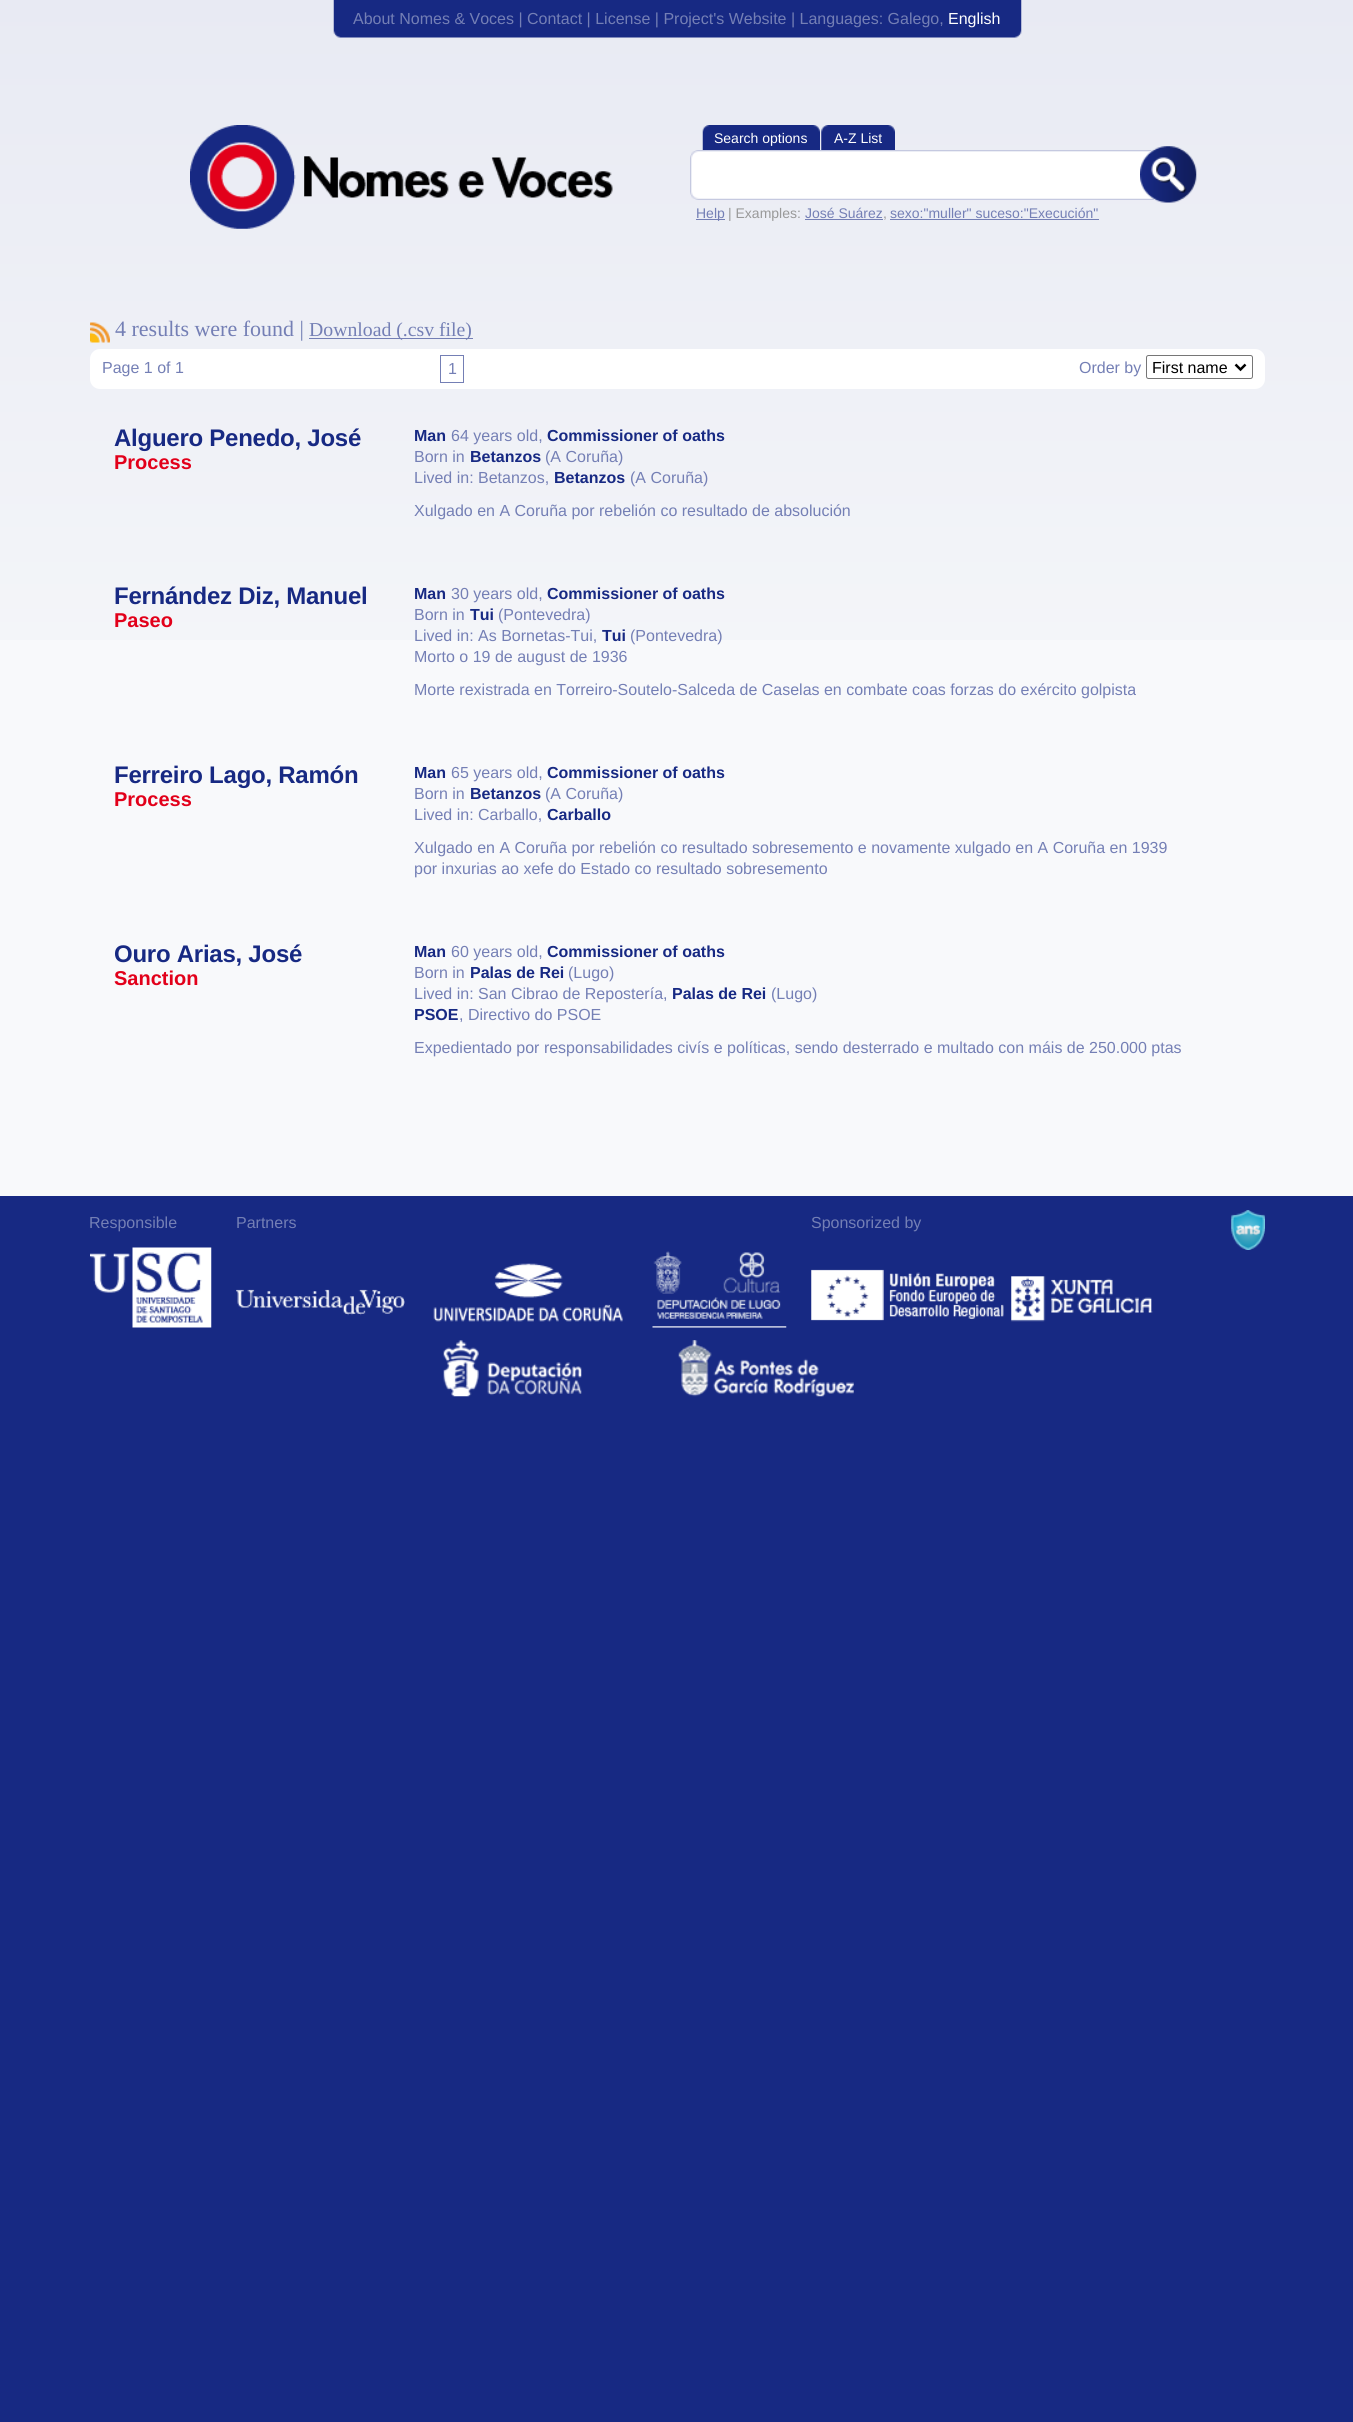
#include <cairo.h>
#include <math.h>
#include <stddef.h>

static cairo_t *c;
static void C(unsigned color){cairo_set_source_rgb(c, (color >> 16) / 255.0, (color >> 8 & 255) / 255.0, (color & 255) / 255.0);}
static void F(const char *family, double size, int italic, int bold){cairo_select_font_face(c, family, italic ? CAIRO_FONT_SLANT_ITALIC : CAIRO_FONT_SLANT_NORMAL,bold ? CAIRO_FONT_WEIGHT_BOLD : CAIRO_FONT_WEIGHT_NORMAL);cairo_set_font_size(c, size);}
static void T(double x, double y, const char *s){cairo_move_to(c, x, y);cairo_show_text(c, s);}
static void L(double x, double y, const char *s, double letter, double word){cairo_move_to(c, x, y);while (*s) {char ch[5] = {0};int n = 0;do ch[n++] = *s++; while ((*s & 0xC0) == 0x80);cairo_show_text(c, ch);cairo_rel_move_to(c, letter + word * (*ch == ' '), 0);}}
static void R(double x, double y, double w, double h){cairo_rectangle(c, x, y, w, h);cairo_fill(c);}
static void Q(double x, double y, double w, double h, double r){cairo_new_sub_path(c);cairo_arc(c, x + w - r, y + h - r, r, 0, M_PI / 2);cairo_arc(c, x + r, y + h - r, r, M_PI / 2, M_PI);cairo_arc(c, x + r, y + r, r, M_PI, 1.5 * M_PI);cairo_arc(c, x + w - r, y + r, r, 1.5 * M_PI, 2 * M_PI);cairo_close_path(c);}
static void I(const char *path, double x, double y, double w, double h){cairo_surface_t *image = cairo_image_surface_create_from_png(path);cairo_save(c);cairo_set_source_surface(c, image, x, y);cairo_rectangle(c, x, y, w, h);cairo_fill(c);cairo_restore(c);cairo_surface_destroy(image);}
int main(void) {
cairo_surface_t *surface = cairo_image_surface_create(CAIRO_FORMAT_RGB24, 1353, 2422);
c = cairo_create(surface);
cairo_font_options_t *options = cairo_font_options_create();
cairo_font_options_set_hint_metrics(options, CAIRO_HINT_METRICS_OFF);
cairo_font_options_set_hint_style(options, CAIRO_HINT_STYLE_NONE);
cairo_set_font_options(c, options);
cairo_set_miter_limit(c, 4);
C(0x172983);
cairo_paint(c);
C(0xf8f9fb);
R(0,640,1353,556);
I("1.png",0,0,1353,640);
I("2.png",333,0,689,38);
F("Liberation Sans",16,0,0);
C(0x747fb5);
T(353,24,"About Nomes & Voces | Contact | License | Project's Website | Languages: Galego,");
C(0xffffff);
T(948,24,"English");
I("3.png",190,125,423,104);
I("4.png",715,125,105,25);
I("5.png",702,125,13,25);
F("Liberation Sans",14,0,0);
T(714,143,"Search options");
I("6.png",834,125,61,25);
I("7.png",821,125,13,25);
T(834,143,"A-Z List");
I("8.png",690,163,467,37);
I("9.png",690,150,464,13);
I("10.png",1140,146,57,57);
C(0x747fb5);
R(696,219,29,1);
T(696,218,"Help");
C(0x999999);
T(728,218,"| Examples:");
C(0x747fb5);
T(805,218,"José Suárez");
R(805,219,78,1);
C(0x999999);
T(883,218,",");
C(0x747fb5);
T(890,218,"sexo:\"muller\" suceso:\"Execución\"");
R(890,219,209,1);
I("11.png",90,322,20,21);
F("Liberation Serif",22,0,0);
T(115,336,"4 results were found |");
R(309,338,164,1);
F("Liberation Serif",19.75,0,0);
T(309,336,"Download (.csv file)");
C(0xffffff);
Q(90,349,1175,40,10);
cairo_fill(c);
F("Liberation Sans",16,0,0);
C(0x747fb5);
T(102,373,"Page 1 of 1");
cairo_rectangle(c,440.5,355.5,23,27);
cairo_set_line_width(c,1);
cairo_stroke(c);
T(448,374,"1");
T(1079,373,"Order by");
Q(1146.5,355.5,106,23,2);
C(0x767676);
cairo_stroke(c);
cairo_new_path(c);
cairo_move_to(c,1235.5,364.5);
cairo_line_to(c,1240.5,369.5);
cairo_line_to(c,1245.5,364.5);
C(0x000000);
cairo_set_line_width(c,2.5);
cairo_stroke(c);
T(1152,373,"First name");
F("Liberation Sans",24,0,1);
C(0x172983);
L(114,446,"Alguero Penedo, José",-.25,0);
F("Liberation Sans",20,0,1);
C(0xe2001a);
T(114,469,"Process");
F("Liberation Sans",16,0,1);
C(0x172983);
T(414,441,"Man");
F("Liberation Sans",16,0,0);
C(0x747fb5);
T(451,441,"64 years old,");
F("Liberation Sans",16,0,1);
C(0x172983);
T(547,441,"Commissioner of oaths");
F("Liberation Sans",16,0,0);
C(0x747fb5);
T(414,462,"Born in");
F("Liberation Sans",16,0,1);
C(0x172983);
T(470,462,"Betanzos");
F("Liberation Sans",16,0,0);
C(0x747fb5);
T(545,462,"(A Coruña)");
T(414,483,"Lived in: Betanzos,");
F("Liberation Sans",16,0,1);
C(0x172983);
T(554,483,"Betanzos");
F("Liberation Sans",16,0,0);
C(0x747fb5);
T(630,483,"(A Coruña)");
T(414,516,"Xulgado en A Coruña por rebelión co resultado de absolución");
F("Liberation Sans",24,0,1);
C(0x172983);
L(114,604,"Fernández Diz, Manuel",-.25,0);
F("Liberation Sans",20,0,1);
C(0xe2001a);
T(114,627,"Paseo");
F("Liberation Sans",16,0,1);
C(0x172983);
T(414,599,"Man");
F("Liberation Sans",16,0,0);
C(0x747fb5);
T(451,599,"30 years old,");
F("Liberation Sans",16,0,1);
C(0x172983);
T(547,599,"Commissioner of oaths");
F("Liberation Sans",16,0,0);
C(0x747fb5);
T(414,620,"Born in");
F("Liberation Sans",16,0,1);
C(0x172983);
T(470,620,"Tui");
F("Liberation Sans",16,0,0);
C(0x747fb5);
T(498,620,"(Pontevedra)");
T(414,641,"Lived in: As Bornetas-Tui,");
F("Liberation Sans",16,0,1);
C(0x172983);
T(602,641,"Tui");
F("Liberation Sans",16,0,0);
C(0x747fb5);
T(630,641,"(Pontevedra)");
T(414,662,"Morto o 19 de august de 1936");
T(414,695,"Morte rexistrada en Torreiro-Soutelo-Salceda de Caselas en combate coas forzas do exército golpista");
F("Liberation Sans",24,0,1);
C(0x172983);
L(114,783,"Ferreiro Lago, Ramón",-.25,0);
F("Liberation Sans",20,0,1);
C(0xe2001a);
T(114,806,"Process");
F("Liberation Sans",16,0,1);
C(0x172983);
T(414,778,"Man");
F("Liberation Sans",16,0,0);
C(0x747fb5);
T(451,778,"65 years old,");
F("Liberation Sans",16,0,1);
C(0x172983);
T(547,778,"Commissioner of oaths");
F("Liberation Sans",16,0,0);
C(0x747fb5);
T(414,799,"Born in");
F("Liberation Sans",16,0,1);
C(0x172983);
T(470,799,"Betanzos");
F("Liberation Sans",16,0,0);
C(0x747fb5);
T(545,799,"(A Coruña)");
T(414,820,"Lived in: Carballo,");
F("Liberation Sans",16,0,1);
C(0x172983);
T(547,820,"Carballo");
F("Liberation Sans",16,0,0);
C(0x747fb5);
T(414,853,"Xulgado en A Coruña por rebelión co resultado sobresemento e novamente xulgado en A Coruña en 1939");
T(414,874,"por inxurias ao xefe do Estado co resultado sobresemento");
F("Liberation Sans",24,0,1);
C(0x172983);
L(114,962,"Ouro Arias, José",-.25,0);
F("Liberation Sans",20,0,1);
C(0xe2001a);
T(114,985,"Sanction");
F("Liberation Sans",16,0,1);
C(0x172983);
T(414,957,"Man");
F("Liberation Sans",16,0,0);
C(0x747fb5);
T(451,957,"60 years old,");
F("Liberation Sans",16,0,1);
C(0x172983);
T(547,957,"Commissioner of oaths");
F("Liberation Sans",16,0,0);
C(0x747fb5);
T(414,978,"Born in");
F("Liberation Sans",16,0,1);
C(0x172983);
T(470,978,"Palas de Rei");
F("Liberation Sans",16,0,0);
C(0x747fb5);
T(568,978,"(Lugo)");
T(414,999,"Lived in: San Cibrao de Repostería,");
F("Liberation Sans",16,0,1);
C(0x172983);
T(672,999,"Palas de Rei");
F("Liberation Sans",16,0,0);
C(0x747fb5);
T(771,999,"(Lugo)");
F("Liberation Sans",16,0,1);
C(0x172983);
T(414,1020,"PSOE");
F("Liberation Sans",16,0,0);
C(0x747fb5);
T(459,1020,", Directivo do PSOE");
T(414,1053,"Expedientado por responsabilidades civís e políticas, sendo desterrado e multado con máis de 250.000 ptas");
T(89,1228,"Responsible");
I("12.png",90,1247,122,81);
T(236,1228,"Partners");
I("13.png",236,1289,169,27);
I("14.png",433,1263,190,59);
I("15.png",652,1251,135,77);
T(811,1228,"Sponsorized by");
I("16.png",811,1269,193,52);
I("17.png",1011,1276,142,46);
I("18.png",1231,1210,34,40);
I("19.png",443,1340,139,57);
I("20.png",678,1340,176,57);
cairo_surface_write_to_png(surface, "o.png");
cairo_font_options_destroy(options);
cairo_destroy(c);
cairo_surface_destroy(surface);
return 0;
}
